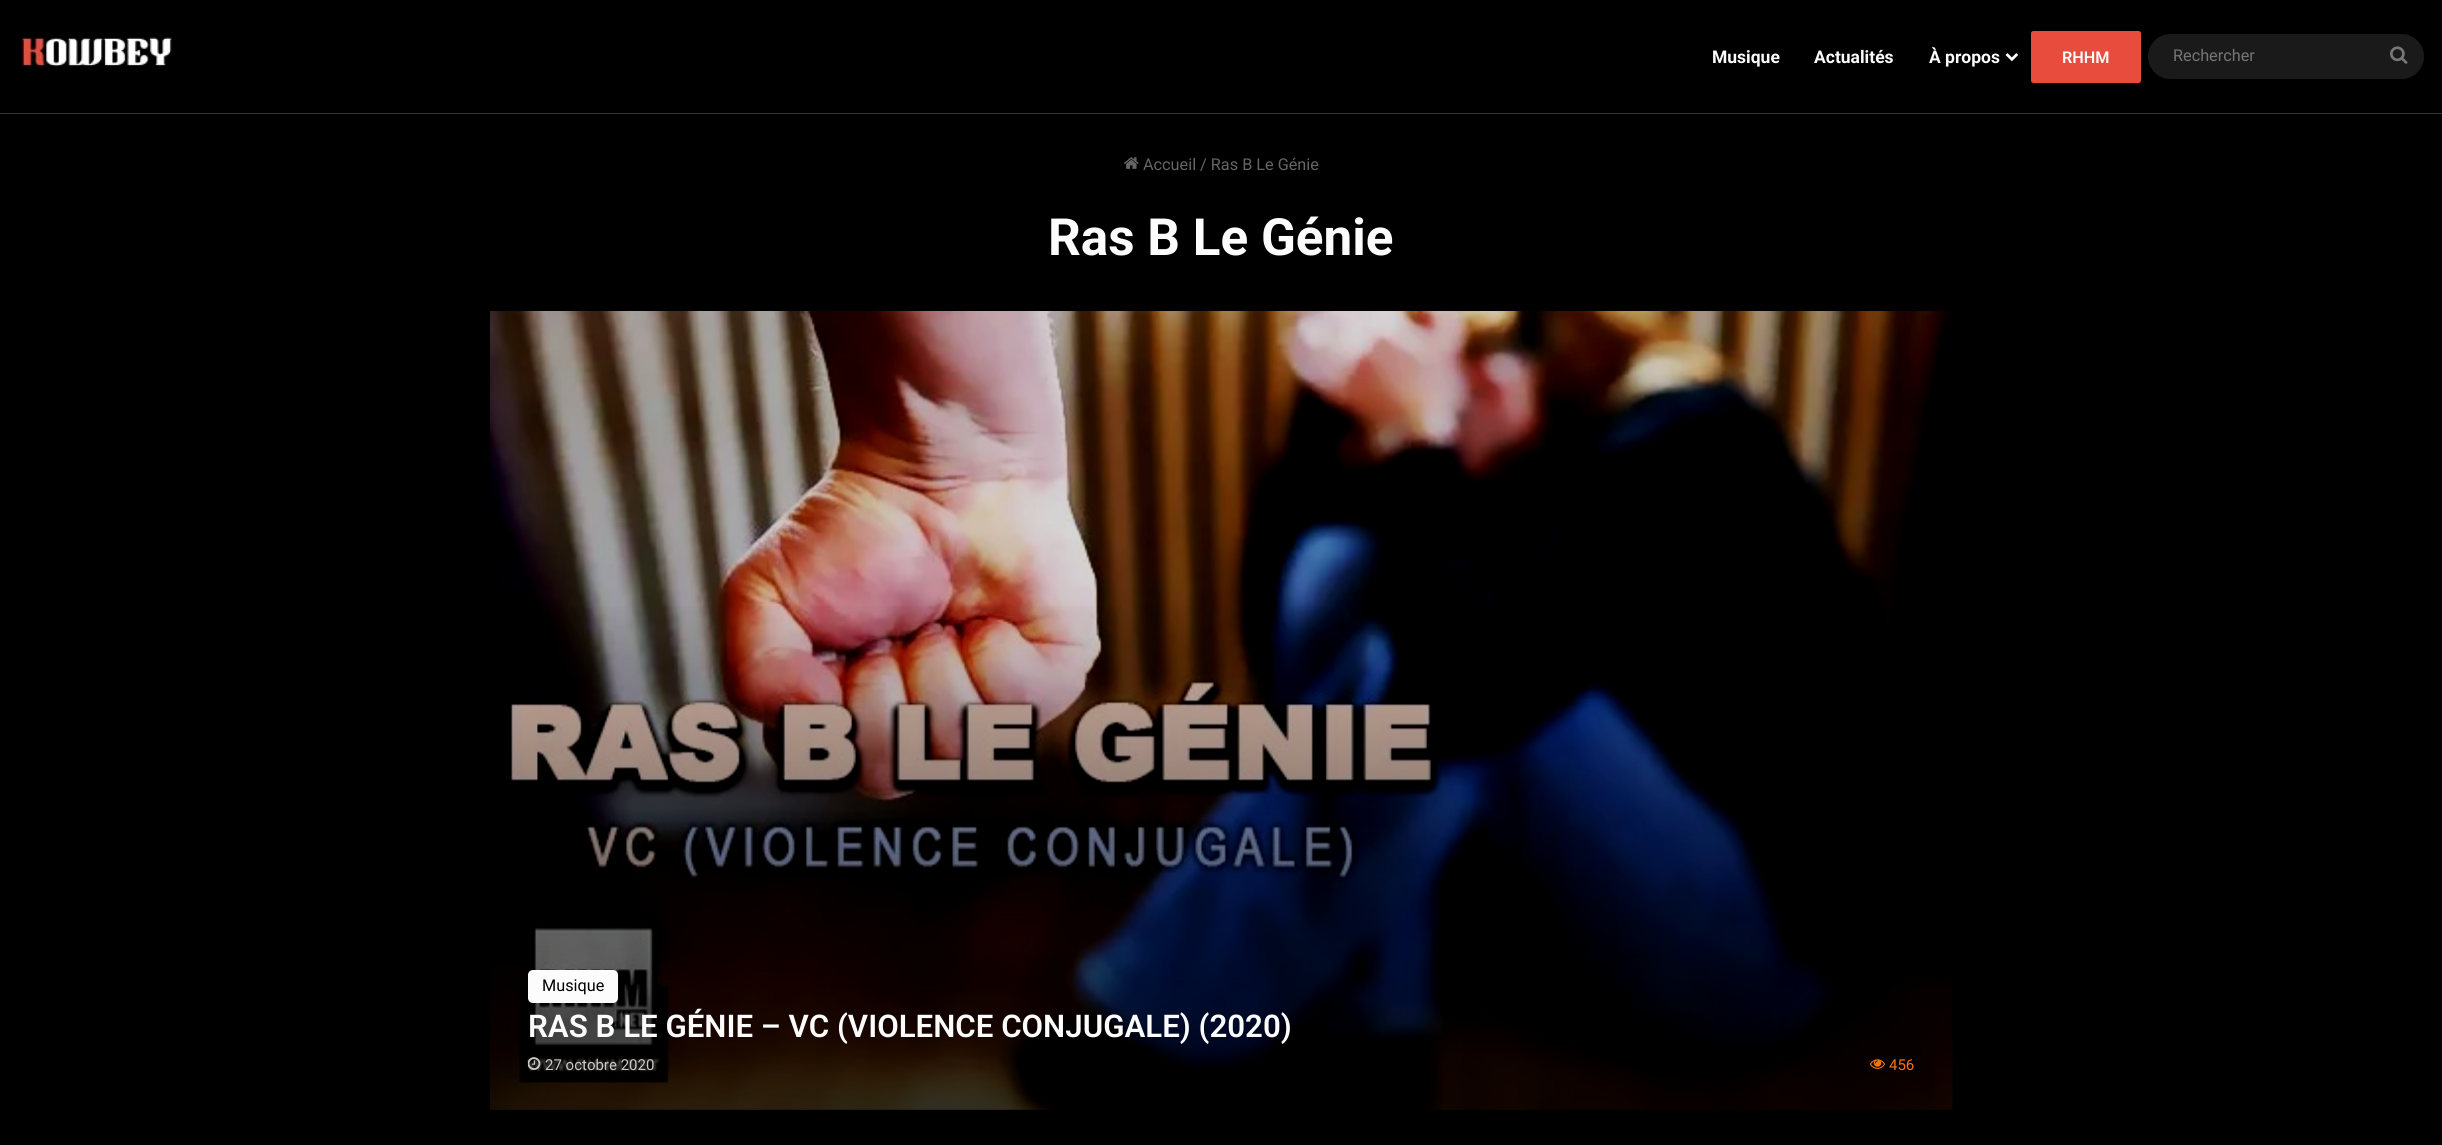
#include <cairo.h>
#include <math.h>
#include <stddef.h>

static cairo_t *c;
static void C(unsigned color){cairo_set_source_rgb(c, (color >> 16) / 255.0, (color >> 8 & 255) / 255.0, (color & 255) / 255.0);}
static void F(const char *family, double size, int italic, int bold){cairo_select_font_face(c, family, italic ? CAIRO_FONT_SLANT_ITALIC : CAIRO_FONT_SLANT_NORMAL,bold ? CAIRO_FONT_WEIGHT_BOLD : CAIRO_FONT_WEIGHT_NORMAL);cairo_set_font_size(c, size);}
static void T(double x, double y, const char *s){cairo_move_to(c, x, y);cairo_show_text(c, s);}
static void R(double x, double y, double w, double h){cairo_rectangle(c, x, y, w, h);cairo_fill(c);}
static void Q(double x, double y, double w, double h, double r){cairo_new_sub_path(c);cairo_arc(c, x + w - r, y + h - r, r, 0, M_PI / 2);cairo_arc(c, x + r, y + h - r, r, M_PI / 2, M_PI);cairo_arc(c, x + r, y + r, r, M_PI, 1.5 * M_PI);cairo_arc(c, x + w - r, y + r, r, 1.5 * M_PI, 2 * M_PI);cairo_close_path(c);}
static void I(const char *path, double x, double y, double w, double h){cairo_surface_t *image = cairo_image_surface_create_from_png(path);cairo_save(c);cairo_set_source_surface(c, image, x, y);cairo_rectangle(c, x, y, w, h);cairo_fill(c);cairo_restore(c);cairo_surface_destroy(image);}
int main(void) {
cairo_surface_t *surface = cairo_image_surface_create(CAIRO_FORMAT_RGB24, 2442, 1145);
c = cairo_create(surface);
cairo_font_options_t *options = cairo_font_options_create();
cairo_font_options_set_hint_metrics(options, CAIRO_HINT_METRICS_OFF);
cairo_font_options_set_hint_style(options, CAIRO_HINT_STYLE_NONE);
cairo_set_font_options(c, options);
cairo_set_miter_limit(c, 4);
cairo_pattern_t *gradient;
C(0x000000);
cairo_paint(c);
C(0x333333);
R(0,113,2442,1);
I("1.png",19,35,153,32);
F("Roboto",17.5,0,1);
C(0xfcfcfc);
T(1712,63,"Musique");
T(1814,63,"Actualités");
T(1929,63,"À propos");
I("2.png",2005,53,13,9);
C(0xe74c3c);
Q(2031,31,110,52,2.5);
cairo_fill(c);
F("Roboto SemiBold",16.25,0,0);
C(0xfcfcfc);
T(2062,63,"RHHM");
C(0x1a1a1a);
Q(2148,34,276,45,22.5);
cairo_fill(c);
F("Roboto",16.25,0,0);
C(0x757575);
T(2173,61,"Rechercher");
I("3.png",2390,46,18,18);
I("4.png",1124,157,15,12);
C(0x656565);
T(1143,170,"Accueil / Ras B Le Génie");
F("Roboto",51.25,0,1);
C(0xfcfcfc);
T(1048,255,"Ras B Le Génie");
I("5.png",490,311,1463,799);
gradient = cairo_pattern_create_linear(1221,591,1221,1110);
cairo_pattern_add_color_stop_rgba(gradient,0,0,0,0,0);
cairo_pattern_add_color_stop_rgba(gradient,1,0,0,0,.75);
cairo_set_source(c,gradient);
cairo_pattern_destroy(gradient);
R(490,606,1463,504);
C(0xfcfcfc);
Q(528,970,90,33,5);
cairo_fill(c);
F("Roboto",16.25,0,0);
C(0x000000);
T(542,991,"Musique");
F("Roboto SemiBold",31.25,0,0);
C(0xfcfcfc);
T(528,1037,"RAS B LE GÉNIE – VC (VIOLENCE CONJUGALE) (2020)");
I("6.png",528,1057,13,13);
F("Roboto",15,0,0);
C(0xcacaca);
T(545,1070,"27 octobre 2020");
I("7.png",1870,1059,15,10);
C(0xf27412);
T(1889,1070,"456");
cairo_surface_write_to_png(surface, "o.png");
cairo_font_options_destroy(options);
cairo_destroy(c);
cairo_surface_destroy(surface);
return 0;
}
